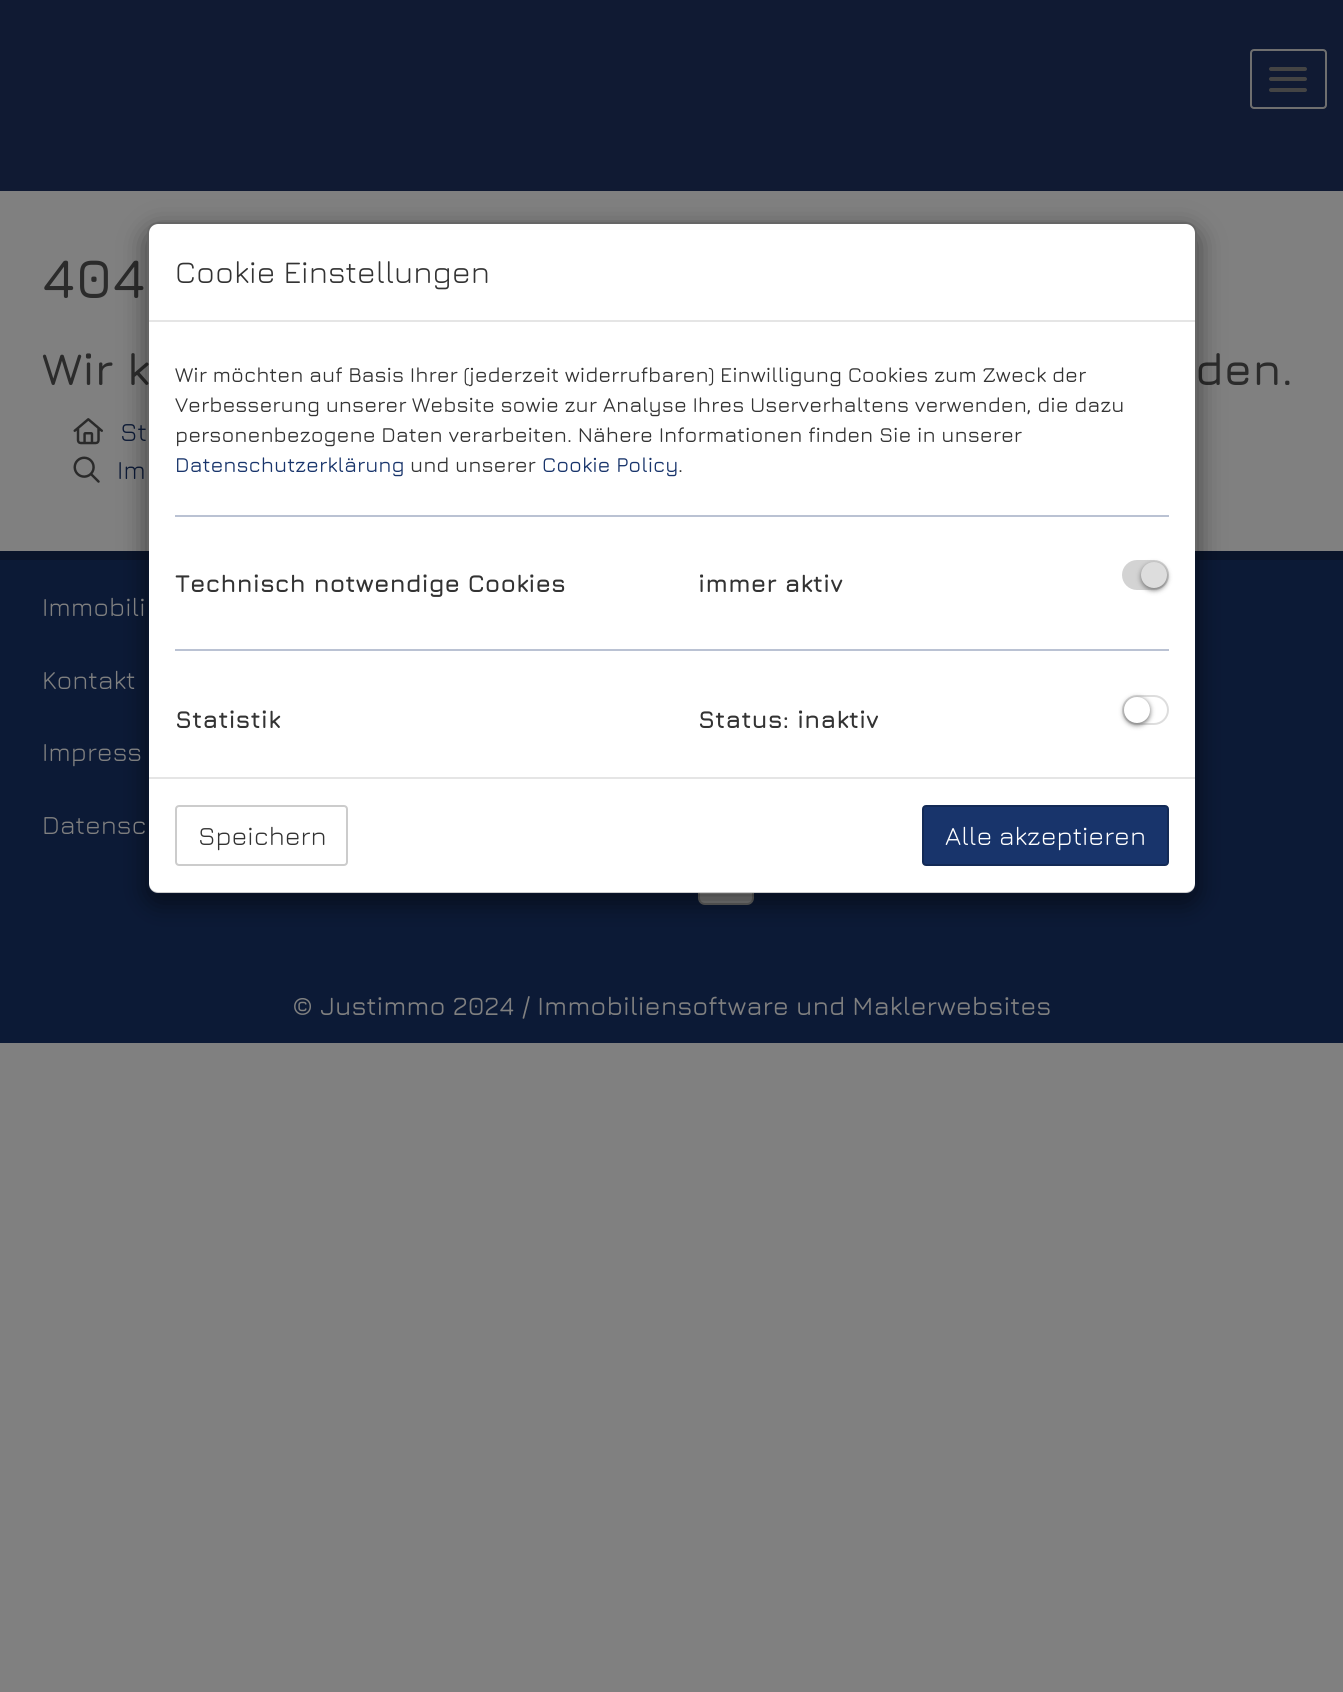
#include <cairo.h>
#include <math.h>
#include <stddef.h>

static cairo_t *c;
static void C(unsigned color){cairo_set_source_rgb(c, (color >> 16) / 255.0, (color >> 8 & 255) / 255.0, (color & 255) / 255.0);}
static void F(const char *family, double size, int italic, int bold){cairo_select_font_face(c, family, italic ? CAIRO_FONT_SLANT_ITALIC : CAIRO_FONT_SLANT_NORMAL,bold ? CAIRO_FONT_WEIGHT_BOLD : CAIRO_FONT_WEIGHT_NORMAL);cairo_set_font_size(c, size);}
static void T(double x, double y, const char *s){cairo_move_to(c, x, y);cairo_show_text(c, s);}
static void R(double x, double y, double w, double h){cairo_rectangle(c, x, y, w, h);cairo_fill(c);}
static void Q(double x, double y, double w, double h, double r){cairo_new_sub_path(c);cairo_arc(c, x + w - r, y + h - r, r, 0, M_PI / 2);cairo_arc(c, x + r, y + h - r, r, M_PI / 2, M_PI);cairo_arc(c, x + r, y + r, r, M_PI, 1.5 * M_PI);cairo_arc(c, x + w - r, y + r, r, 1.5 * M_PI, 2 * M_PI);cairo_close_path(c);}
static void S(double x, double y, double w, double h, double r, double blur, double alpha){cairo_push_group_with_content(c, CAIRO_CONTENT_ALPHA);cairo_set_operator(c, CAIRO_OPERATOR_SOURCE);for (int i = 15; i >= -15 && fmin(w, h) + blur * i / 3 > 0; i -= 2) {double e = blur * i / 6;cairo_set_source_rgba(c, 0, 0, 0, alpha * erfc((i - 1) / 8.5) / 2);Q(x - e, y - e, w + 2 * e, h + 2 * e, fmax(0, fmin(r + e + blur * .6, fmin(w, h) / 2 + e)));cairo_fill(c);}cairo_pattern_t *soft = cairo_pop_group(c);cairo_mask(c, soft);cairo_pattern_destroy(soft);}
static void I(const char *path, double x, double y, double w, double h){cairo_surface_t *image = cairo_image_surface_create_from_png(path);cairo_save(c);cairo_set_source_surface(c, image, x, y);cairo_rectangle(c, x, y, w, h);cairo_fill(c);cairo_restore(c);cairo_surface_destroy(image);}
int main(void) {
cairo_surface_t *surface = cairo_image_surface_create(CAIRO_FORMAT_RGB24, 1343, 1692);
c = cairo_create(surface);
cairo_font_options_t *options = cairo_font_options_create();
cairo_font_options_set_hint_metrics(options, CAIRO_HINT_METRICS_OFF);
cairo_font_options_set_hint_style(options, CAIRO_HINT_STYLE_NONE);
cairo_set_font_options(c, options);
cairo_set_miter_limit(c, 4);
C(0x808080);
cairo_paint(c);
C(0x101a33);
R(0,0,1343,191);
Q(1251,50,75,58,3);
C(0x6f6f6f);
cairo_stroke(c);
C(0x444444);
Q(1269,67,38,4,2);
cairo_fill(c);
Q(1269,77,38,4,2);
cairo_fill(c);
Q(1269,88,38,4,2);
cairo_fill(c);
F("Jura SemiBold",56,0,0);
C(0x2b2b2b);
T(42,298,"404");
F("Jura SemiBold",45.5,0,0);
T(42,385,"Wir k");
T(1195,385,"den.");
I("1.png",73,418,30,27);
F("Jura",26.25,0,0);
C(0x0c1a36);
T(120,441,"St");
I("2.png",73,456,27,27);
T(117,479,"Im");
R(0,560,1343,483);
C(0x0a152b);
R(0,551,1343,9);
C(0x808080);
Q(699,850,54,54,6);
cairo_fill_preserve(c);
C(0x666666);
cairo_stroke(c);
cairo_save(c);
cairo_set_fill_rule(c,CAIRO_FILL_RULE_EVEN_ODD);
cairo_new_path(c);
cairo_move_to(c,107,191);
cairo_line_to(c,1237,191);
cairo_line_to(c,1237,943);
cairo_line_to(c,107,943);
cairo_close_path(c);
cairo_move_to(c,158,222);
cairo_line_to(c,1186,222);
cairo_curve_to(c,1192,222,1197,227,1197,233);
cairo_line_to(c,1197,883);
cairo_curve_to(c,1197,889,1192,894,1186,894);
cairo_line_to(c,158,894);
cairo_curve_to(c,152,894,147,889,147,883);
cairo_line_to(c,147,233);
cairo_curve_to(c,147,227,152,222,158,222);
cairo_close_path(c);
cairo_clip(c);
C(0x000000);
S(147,231,1050,672,11,13,.5);
cairo_restore(c);
C(0xffffff);
Q(149,224,1046,669,9);
cairo_fill(c);
Q(148,223,1048,670,10);
cairo_set_source_rgba(c,0,0,0,0.2);
cairo_stroke(c);
C(0xe5e5e5);
R(149,320,1046,2);
F("Jura",31.5,0,0);
C(0x333333);
T(175,283,"Cookie Einstellungen");
F("Jura Medium",21,0,0);
T(175,382,"Wir möchten auf Basis Ihrer (jederzeit widerrufbaren) Einwilligung Cookies zum Zweck der");
T(175,412,"Verbesserung unserer Website sowie zur Analyse Ihres Userverhaltens verwenden, die dazu");
T(175,442,"personenbezogene Daten verarbeiten. Nähere Informationen finden Sie in unserer");
C(0x18346b);
T(175,472,"Datenschutzerklärung");
C(0x333333);
T(410,472,"und unserer");
C(0x18346b);
T(542,472,"Cookie Policy");
C(0x333333);
T(678,472,".");
C(0xbac2d3);
R(175,515,994,2);
F("Jura",24.5,0,1);
C(0x333333);
T(175,592,"Technisch notwendige Cookies");
T(698,592,"immer aktiv");
C(0xd3d3d3);
Q(1123,561,45,28,14);
cairo_fill_preserve(c);
cairo_stroke(c);
C(0x777777);
S(1141,564,26,26,13,2.5,1);
C(0xdddddd);
cairo_arc(c,1154,575,13,0,2 * M_PI);
cairo_fill(c);
C(0xbac2d3);
R(175,649,994,2);
C(0x333333);
T(175,728,"Statistik");
T(698,728,"Status: inaktiv");
Q(1123,696,45,28,14);
C(0xdddddd);
cairo_stroke(c);
C(0x777777);
S(1124,698,26,27,13,2.5,1);
C(0xffffff);
cairo_arc(c,1137,710,13,0,2 * M_PI);
cairo_fill(c);
C(0xe5e5e5);
R(149,777,1046,2);
Q(176,806,171,59,3);
C(0xcccccc);
cairo_stroke(c);
F("Jura",26.25,0,0);
C(0x333333);
T(198,845,"Speichern");
C(0x18346b);
Q(923,806,245,59,3);
cairo_fill_preserve(c);
C(0x132a56);
cairo_stroke(c);
C(0xffffff);
T(945,845,"Alle akzeptieren");
C(0x808080);
T(42,616,"Immobili");
T(42,689,"Kontakt");
T(42,761,"Impress");
T(42,834,"Datensc");
F("Jura Medium",26.25,0,0);
T(292,1015,"© Justimmo 2024 / Immobiliensoftware und Maklerwebsites");
cairo_surface_write_to_png(surface, "o.png");
cairo_font_options_destroy(options);
cairo_destroy(c);
cairo_surface_destroy(surface);
return 0;
}
